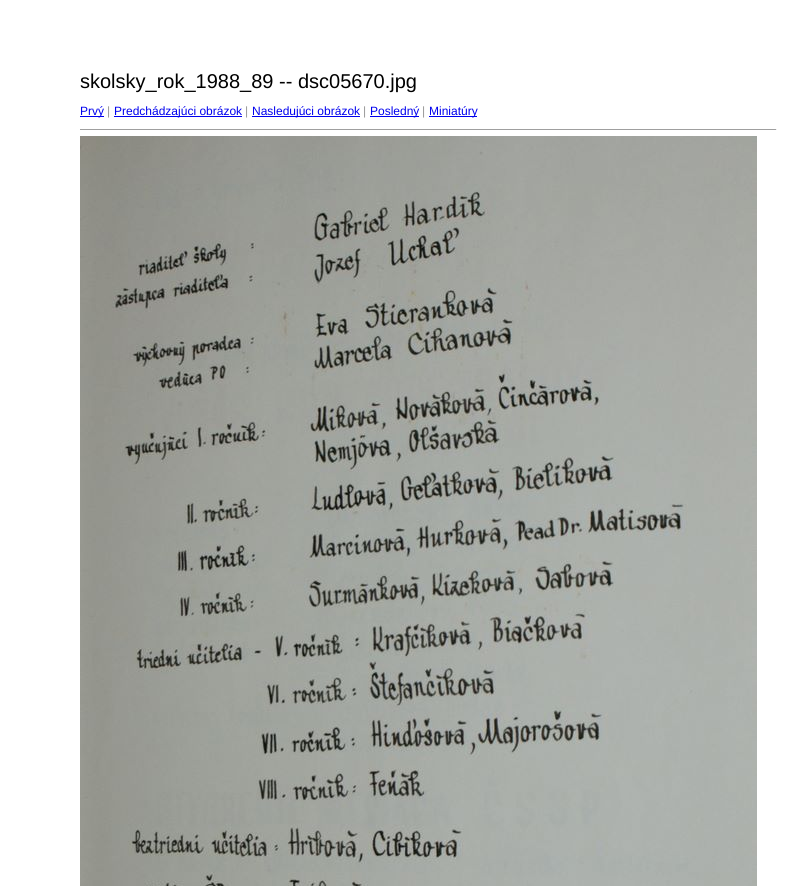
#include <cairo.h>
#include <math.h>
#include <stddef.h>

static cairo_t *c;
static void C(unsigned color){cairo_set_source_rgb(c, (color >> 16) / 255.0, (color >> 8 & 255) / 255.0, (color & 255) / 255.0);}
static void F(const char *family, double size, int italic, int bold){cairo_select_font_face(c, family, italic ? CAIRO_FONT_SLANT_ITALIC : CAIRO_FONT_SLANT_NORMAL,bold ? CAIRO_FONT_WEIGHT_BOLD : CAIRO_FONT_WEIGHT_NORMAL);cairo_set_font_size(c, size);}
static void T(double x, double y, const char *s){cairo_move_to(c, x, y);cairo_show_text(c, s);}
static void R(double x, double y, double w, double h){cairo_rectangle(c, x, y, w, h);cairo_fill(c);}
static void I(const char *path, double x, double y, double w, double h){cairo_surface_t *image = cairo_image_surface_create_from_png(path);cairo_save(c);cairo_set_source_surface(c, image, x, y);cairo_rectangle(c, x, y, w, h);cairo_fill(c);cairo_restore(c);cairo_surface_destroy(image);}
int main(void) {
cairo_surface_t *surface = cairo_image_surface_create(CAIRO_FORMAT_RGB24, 785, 886);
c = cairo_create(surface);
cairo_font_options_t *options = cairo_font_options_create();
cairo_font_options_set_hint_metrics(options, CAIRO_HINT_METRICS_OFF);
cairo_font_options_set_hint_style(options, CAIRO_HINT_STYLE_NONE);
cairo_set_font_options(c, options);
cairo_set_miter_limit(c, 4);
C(0xffffff);
cairo_paint(c);
F("Liberation Sans",20,0,0);
C(0x000000);
T(80,88,"skolsky_rok_1988_89 -- dsc05670.jpg");
C(0x0000ee);
R(80,116,24,1);
F("Liberation Sans",12,0,0);
T(80,115,"Prvý");
C(0x979797);
T(107,115,"|");
C(0x0000ee);
R(114,116,128,1);
T(114,115,"Predchádzajúci obrázok");
C(0x979797);
T(245,115,"|");
C(0x0000ee);
R(252,116,108,1);
T(252,115,"Nasledujúci obrázok");
C(0x979797);
T(363,115,"|");
C(0x0000ee);
R(370,116,49,1);
T(370,115,"Posledný");
C(0x979797);
T(422,115,"|");
C(0x0000ee);
R(429,116,48,1);
T(429,115,"Miniatúry");
C(0x9f9f9f);
R(80,129,697,1);
C(0xeeeeee);
R(776,129,1,1);
I("1.png",80,136,677,750);
cairo_surface_write_to_png(surface, "o.png");
cairo_font_options_destroy(options);
cairo_destroy(c);
cairo_surface_destroy(surface);
return 0;
}
